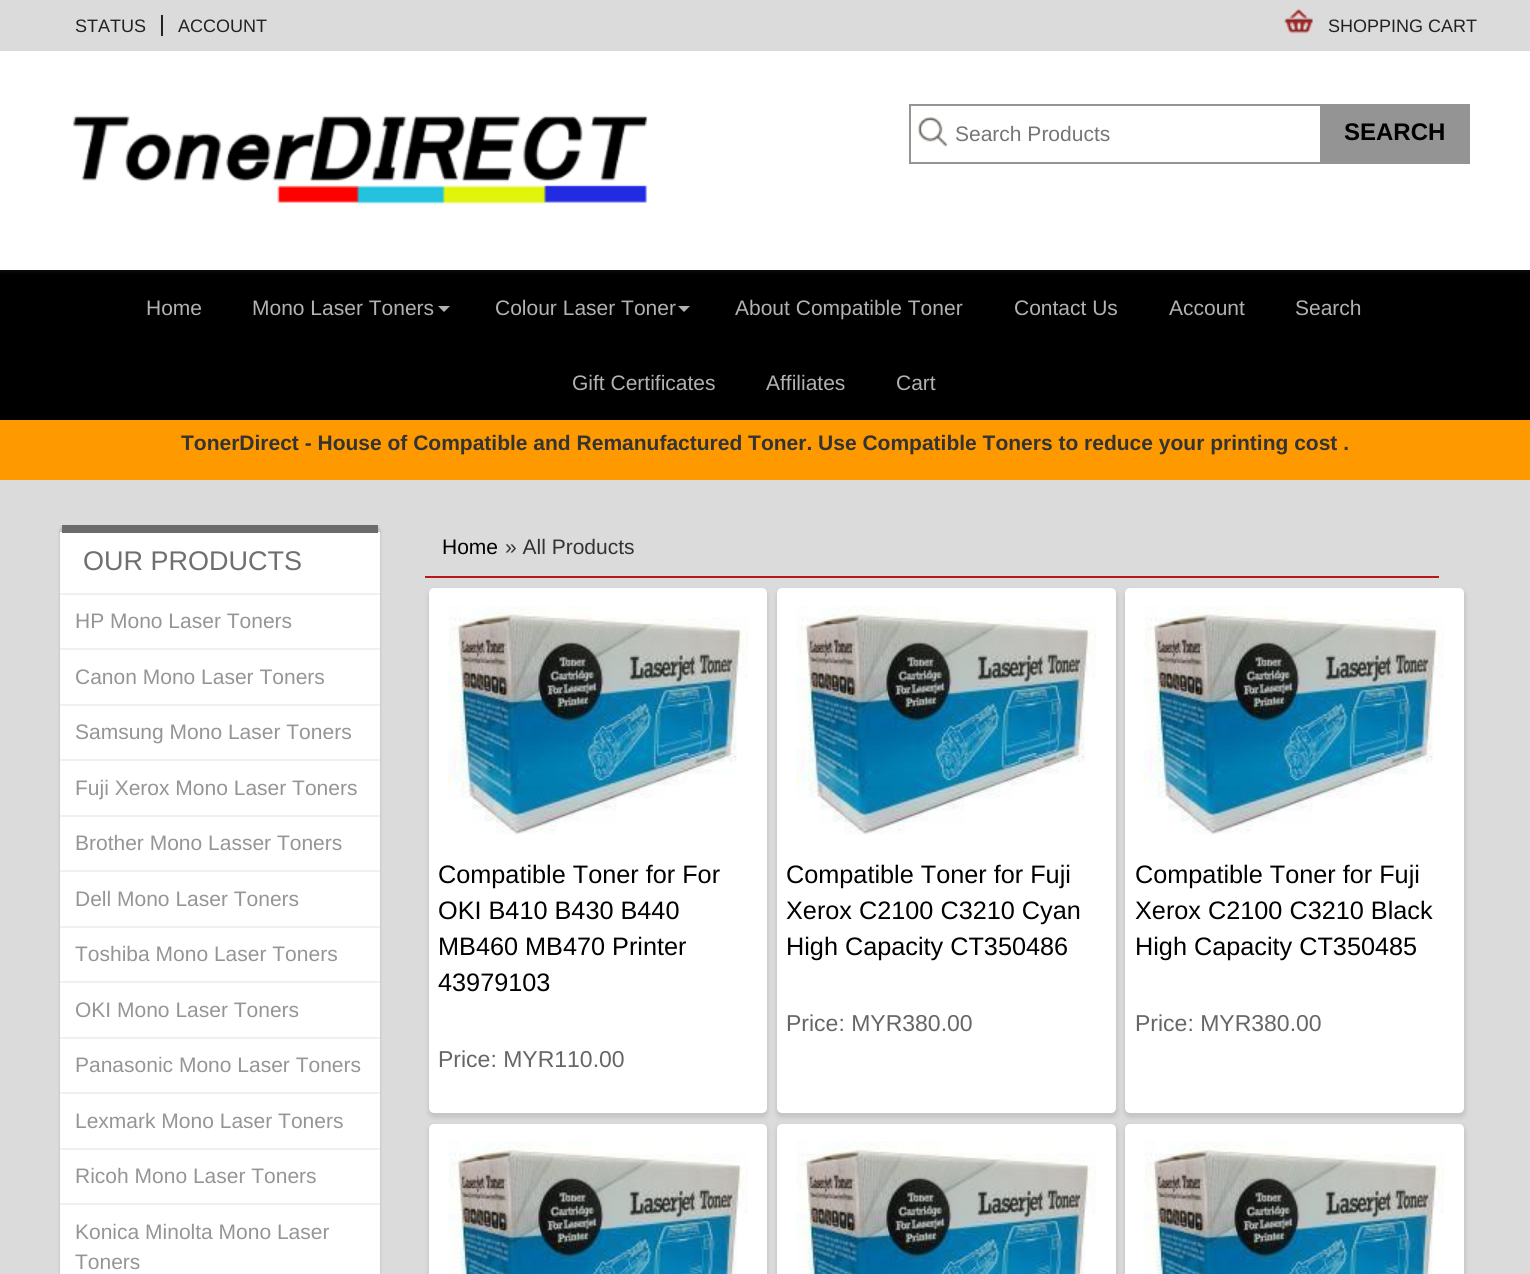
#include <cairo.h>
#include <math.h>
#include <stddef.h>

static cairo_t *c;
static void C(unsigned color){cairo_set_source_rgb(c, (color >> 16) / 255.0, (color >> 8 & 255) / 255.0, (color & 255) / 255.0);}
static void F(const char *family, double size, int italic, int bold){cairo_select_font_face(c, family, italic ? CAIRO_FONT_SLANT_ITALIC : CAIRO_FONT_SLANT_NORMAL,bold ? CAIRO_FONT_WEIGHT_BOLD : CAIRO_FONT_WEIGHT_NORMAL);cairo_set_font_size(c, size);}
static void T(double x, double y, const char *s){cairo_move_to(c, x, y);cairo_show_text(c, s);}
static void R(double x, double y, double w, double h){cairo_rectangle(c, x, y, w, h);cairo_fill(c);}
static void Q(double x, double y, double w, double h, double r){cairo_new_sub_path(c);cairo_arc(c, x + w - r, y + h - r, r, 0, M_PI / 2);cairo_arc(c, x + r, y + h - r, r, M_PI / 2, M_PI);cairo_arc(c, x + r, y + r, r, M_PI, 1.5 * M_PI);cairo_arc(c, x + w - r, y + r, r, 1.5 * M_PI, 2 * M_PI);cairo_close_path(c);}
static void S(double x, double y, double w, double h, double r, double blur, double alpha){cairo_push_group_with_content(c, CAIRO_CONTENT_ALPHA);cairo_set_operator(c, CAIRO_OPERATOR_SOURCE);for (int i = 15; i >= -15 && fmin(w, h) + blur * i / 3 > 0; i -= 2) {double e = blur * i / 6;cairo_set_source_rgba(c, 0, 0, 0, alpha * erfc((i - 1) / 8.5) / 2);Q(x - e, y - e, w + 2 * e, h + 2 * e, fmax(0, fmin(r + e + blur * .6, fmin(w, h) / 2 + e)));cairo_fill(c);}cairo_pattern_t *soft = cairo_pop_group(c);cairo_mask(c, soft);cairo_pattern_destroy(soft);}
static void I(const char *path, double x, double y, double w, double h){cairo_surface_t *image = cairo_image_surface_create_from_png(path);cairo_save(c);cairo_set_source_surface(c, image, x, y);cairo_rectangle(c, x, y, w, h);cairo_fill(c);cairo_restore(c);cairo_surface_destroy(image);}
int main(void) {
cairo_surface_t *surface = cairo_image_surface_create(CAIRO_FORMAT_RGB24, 1530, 1274);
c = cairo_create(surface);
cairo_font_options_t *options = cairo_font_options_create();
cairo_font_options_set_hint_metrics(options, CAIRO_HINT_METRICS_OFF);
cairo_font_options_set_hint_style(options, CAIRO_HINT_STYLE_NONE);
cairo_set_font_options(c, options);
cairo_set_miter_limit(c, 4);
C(0xdbdbdb);
cairo_paint(c);
C(0x212222);
R(161,15,2,21);
F("Liberation Sans",18,0,0);
T(75,32,"STATUS");
T(178,32,"ACCOUNT");
I("1.png",1284,8,29,26);
T(1328,32,"SHOPPING CART");
C(0x000000);
R(0,270,1530,150);
C(0x474948);
S(0,53,1530,219,0,1.5,.2);
C(0xffffff);
R(0,51,1530,219);
I("2.png",72,115,576,90);
I("3.png",918,117,30,30);
cairo_rectangle(c,910,105,559,58);
C(0x949494);
cairo_stroke(c);
F("Liberation Sans",21,0,0);
C(0x757575);
T(955,141,"Search Products");
C(0x949494);
R(1320,106,148,56);
F("Liberation Sans",24,0,1);
C(0x000000);
T(1344,140,"SEARCH");
F("Liberation Sans",21,0,0);
C(0xb2b2b2);
T(146,315,"Home");
T(252,315,"Mono Laser Toners");
cairo_new_path(c);
cairo_move_to(c,438,306);
cairo_line_to(c,450,306);
cairo_line_to(c,444,312);
cairo_close_path(c);
cairo_fill(c);
T(495,315,"Colour Laser Toner");
cairo_new_path(c);
cairo_move_to(c,678,306);
cairo_line_to(c,690,306);
cairo_line_to(c,684,312);
cairo_close_path(c);
cairo_fill(c);
T(735,315,"About Compatible Toner");
T(1014,315,"Contact Us");
T(1169,315,"Account");
T(1295,315,"Search");
T(572,390,"Gift Certificates");
T(766,390,"Affiliates");
T(896,390,"Cart");
C(0xff9900);
R(0,420,1530,60);
F("Liberation Sans",21,0,1);
C(0x333333);
T(181,450,"TonerDirect - House of Compatible and Remanufactured Toner. Use Compatible Toners to reduce your printing cost .");
C(0x474948);
S(60,527,320,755,3,1.5,.25);
C(0xffffff);
cairo_new_path(c);
cairo_move_to(c,63,532);
cairo_line_to(c,380,532);
cairo_line_to(c,380,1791);
cairo_curve_to(c,380,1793,378,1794,376,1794);
cairo_line_to(c,63,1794);
cairo_curve_to(c,61,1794,60,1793,60,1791);
cairo_line_to(c,60,532);
cairo_close_path(c);
cairo_fill(c);
C(0x6b6b6b);
R(62,525,316,8);
C(0xf0f0f0);
R(60,593,320,2);
F("Liberation Sans",27,0,0);
C(0x6f6f6f);
T(83,570,"OUR PRODUCTS");
C(0xf0f0f0);
R(60,648,320,2);
F("Liberation Sans",21,0,0);
C(0x939694);
T(75,628,"HP Mono Laser Toners");
C(0xf0f0f0);
R(60,704,320,2);
C(0x939694);
T(75,684,"Canon Mono Laser Toners");
C(0xf0f0f0);
R(60,759,320,2);
C(0x939694);
T(75,739,"Samsung Mono Laser Toners");
C(0xf0f0f0);
R(60,815,320,2);
C(0x939694);
T(75,795,"Fuji Xerox Mono Laser Toners");
C(0xf0f0f0);
R(60,870,320,2);
C(0x939694);
T(75,850,"Brother Mono Lasser Toners");
C(0xf0f0f0);
R(60,926,320,2);
C(0x939694);
T(75,906,"Dell Mono Laser Toners");
C(0xf0f0f0);
R(60,981,320,2);
C(0x939694);
T(75,961,"Toshiba Mono Laser Toners");
C(0xf0f0f0);
R(60,1037,320,2);
C(0x939694);
T(75,1017,"OKI Mono Laser Toners");
C(0xf0f0f0);
R(60,1092,320,2);
C(0x939694);
T(75,1072,"Panasonic Mono Laser Toners");
C(0xf0f0f0);
R(60,1148,320,2);
C(0x939694);
T(75,1128,"Lexmark Mono Laser Toners");
C(0xf0f0f0);
R(60,1203,320,2);
C(0x939694);
T(75,1183,"Ricoh Mono Laser Toners");
T(75,1239,"Konica Minolta Mono Laser");
T(75,1269,"Toners");
C(0xb61818);
R(425,576,1014,2);
C(0x000000);
T(442,554,"Home");
C(0x333333);
T(505,554,"» All Products");
C(0x000000);
S(428,590,340,528,6,2,.1);
C(0xffffff);
Q(429,588,338,525,5);
cairo_fill(c);
I("4.png",448,606,301,229);
F("Liberation Sans",25.25,0,0);
C(0x000000);
T(438,883,"Compatible Toner for For");
T(438,919,"OKI B410 B430 B440");
T(438,955,"MB460 MB470 Printer");
T(438,991,"43979103");
F("Liberation Sans",23,0,0);
C(0x666666);
T(438,1067,"Price: MYR110.00");
C(0x000000);
S(776,590,342,528,6,2,.1);
C(0xffffff);
Q(777,588,339,525,5);
cairo_fill(c);
I("5.png",796,606,300,229);
F("Liberation Sans",25.25,0,0);
C(0x000000);
T(786,883,"Compatible Toner for Fuji");
T(786,919,"Xerox C2100 C3210 Cyan");
T(786,955,"High Capacity CT350486");
F("Liberation Sans",23,0,0);
C(0x666666);
T(786,1031,"Price: MYR380.00");
C(0x000000);
S(1124,590,342,528,6,2,.1);
C(0xffffff);
Q(1125,588,339,525,5);
cairo_fill(c);
I("6.png",1144,606,300,229);
F("Liberation Sans",25.25,0,0);
C(0x000000);
T(1135,883,"Compatible Toner for Fuji");
T(1135,919,"Xerox C2100 C3210 Black");
T(1135,955,"High Capacity CT350485");
F("Liberation Sans",23,0,0);
C(0x666666);
T(1135,1031,"Price: MYR380.00");
C(0x000000);
S(428,1125,340,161,6,2,.1);
C(0xffffff);
Q(429,1124,338,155,5);
cairo_fill(c);
I("7.png",448,1141,300,133);
C(0x000000);
S(776,1125,342,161,6,2,.1);
C(0xffffff);
Q(777,1124,339,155,5);
cairo_fill(c);
I("7.png",796,1141,300,133);
C(0x000000);
S(1124,1125,342,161,6,2,.1);
C(0xffffff);
Q(1125,1124,339,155,5);
cairo_fill(c);
I("8.png",1144,1141,301,133);
cairo_surface_write_to_png(surface, "o.png");
cairo_font_options_destroy(options);
cairo_destroy(c);
cairo_surface_destroy(surface);
return 0;
}
